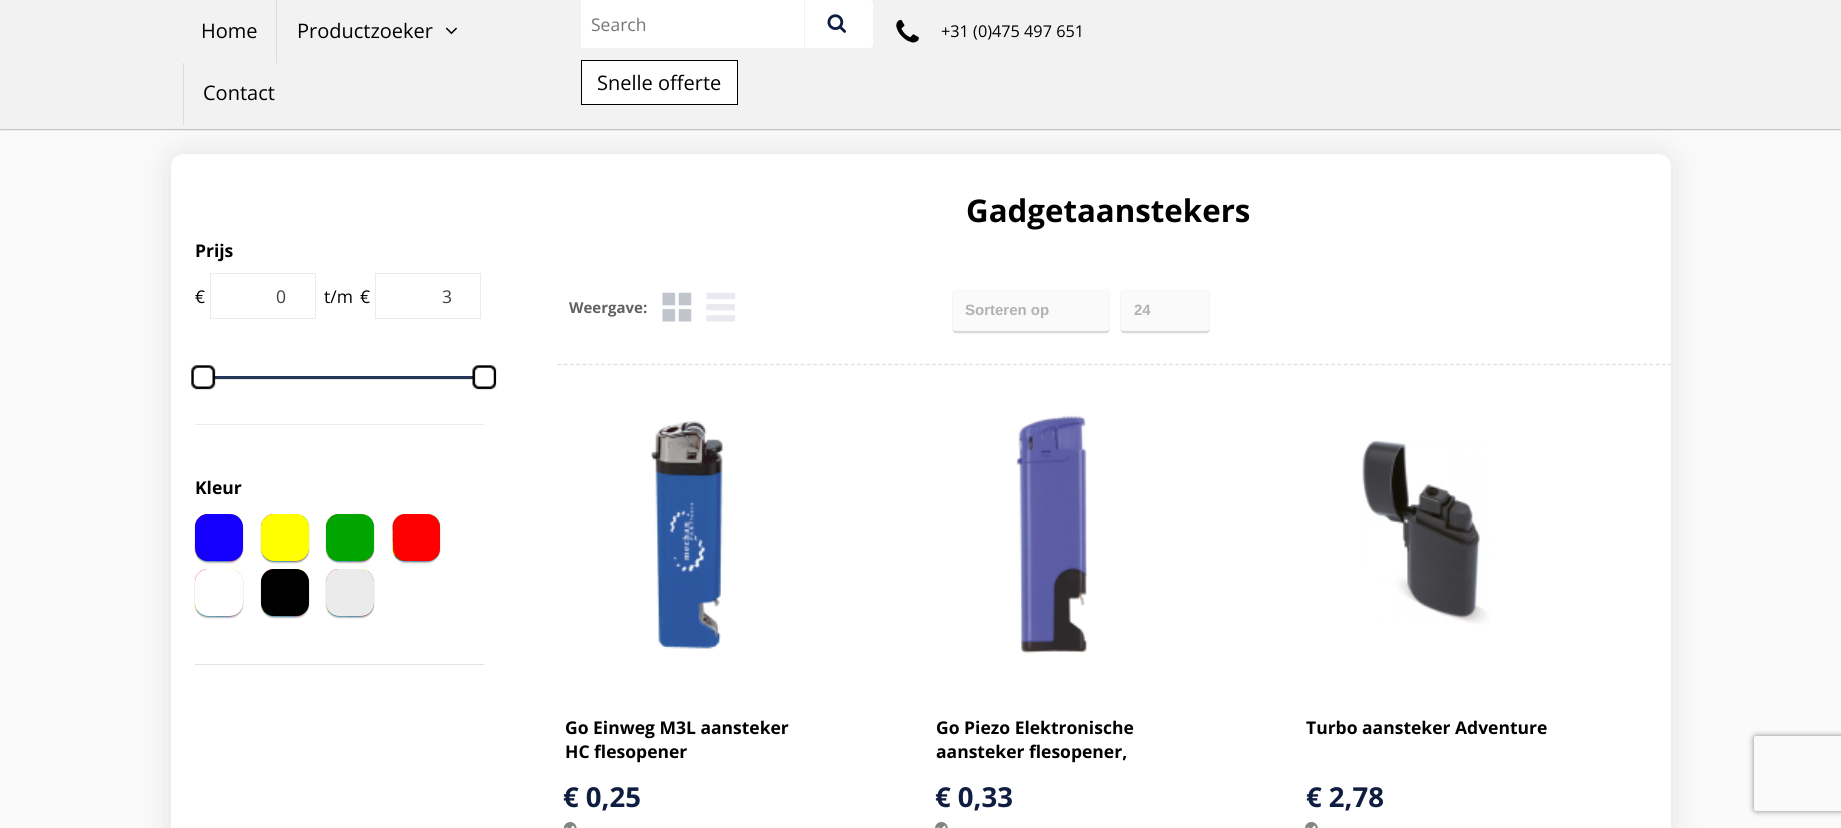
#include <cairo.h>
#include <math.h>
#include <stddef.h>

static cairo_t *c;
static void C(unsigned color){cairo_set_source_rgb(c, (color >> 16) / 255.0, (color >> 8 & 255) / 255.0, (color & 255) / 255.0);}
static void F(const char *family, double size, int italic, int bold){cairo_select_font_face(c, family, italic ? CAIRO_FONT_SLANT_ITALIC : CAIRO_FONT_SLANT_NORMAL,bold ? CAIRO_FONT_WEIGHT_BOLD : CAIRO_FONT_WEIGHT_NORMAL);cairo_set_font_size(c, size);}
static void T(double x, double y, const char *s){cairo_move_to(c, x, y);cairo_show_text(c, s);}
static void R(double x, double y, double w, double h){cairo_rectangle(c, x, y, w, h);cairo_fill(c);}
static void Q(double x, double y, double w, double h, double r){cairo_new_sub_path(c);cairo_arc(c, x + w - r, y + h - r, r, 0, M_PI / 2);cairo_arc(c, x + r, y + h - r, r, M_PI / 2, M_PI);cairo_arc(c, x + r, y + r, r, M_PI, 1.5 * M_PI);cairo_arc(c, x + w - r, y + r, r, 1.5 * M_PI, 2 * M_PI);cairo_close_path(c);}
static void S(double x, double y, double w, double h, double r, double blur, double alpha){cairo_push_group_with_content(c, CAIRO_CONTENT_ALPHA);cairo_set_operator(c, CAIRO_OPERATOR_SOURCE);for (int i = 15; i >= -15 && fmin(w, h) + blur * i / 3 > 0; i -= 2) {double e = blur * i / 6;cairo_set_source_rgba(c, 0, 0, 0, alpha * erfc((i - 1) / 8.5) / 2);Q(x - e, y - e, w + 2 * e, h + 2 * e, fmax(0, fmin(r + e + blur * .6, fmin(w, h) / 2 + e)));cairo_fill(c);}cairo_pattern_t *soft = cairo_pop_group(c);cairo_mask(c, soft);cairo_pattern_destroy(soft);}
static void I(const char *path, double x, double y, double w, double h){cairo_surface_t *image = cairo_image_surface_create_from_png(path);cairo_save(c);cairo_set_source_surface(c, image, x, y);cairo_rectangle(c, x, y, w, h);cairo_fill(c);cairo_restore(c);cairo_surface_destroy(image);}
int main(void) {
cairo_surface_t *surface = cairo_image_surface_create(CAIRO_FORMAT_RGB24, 1841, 828);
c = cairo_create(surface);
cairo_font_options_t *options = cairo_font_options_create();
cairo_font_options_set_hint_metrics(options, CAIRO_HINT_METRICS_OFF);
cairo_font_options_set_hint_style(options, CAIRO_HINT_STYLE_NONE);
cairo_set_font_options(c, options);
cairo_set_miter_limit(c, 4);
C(0xfafafa);
cairo_paint(c);
C(0x323232);
S(0,0,1841,130,0,.5,.3);
C(0x000000);
S(171,154,1500,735,13,16,.1);
C(0xf2f2f2);
R(0,0,1841,129);
F("Open Sans",20,0,0);
C(0x000000);
T(201,38,"Home");
C(0xdcdcdc);
R(276,0,1,63);
C(0x000000);
T(297,38,"Productzoeker");
I("1.png",445,27,12,8);
C(0xdcdcdc);
R(183,63,1,62);
C(0x000000);
T(203,100,"Contact");
C(0xffffff);
R(581,0,223,48);
F("Open Sans",17.5,0,0);
C(0x757575);
T(591,31,"Search");
C(0xffffff);
cairo_new_path(c);
cairo_move_to(c,804,0);
cairo_line_to(c,869,0);
cairo_curve_to(c,871,0,873,2,873,4);
cairo_line_to(c,873,44);
cairo_curve_to(c,873,46,871,48,869,48);
cairo_line_to(c,804,48);
cairo_close_path(c);
cairo_fill(c);
C(0xf2f2f2);
R(804,0,1,48);
I("2.png",827,14,20,19);
I("3.png",896,19,23,24);
F("Open Sans",16.25,0,0);
C(0x000000);
T(941,37,"+31 (0)475 497 651");
C(0xffffff);
cairo_rectangle(c,581.5,60.5,156,44);
cairo_fill_preserve(c);
C(0x000000);
cairo_set_line_width(c,1);
cairo_stroke(c);
F("Open Sans",20,0,0);
T(597,90,"Snelle offerte");
C(0xffffff);
Q(171,154,1500,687,13);
cairo_fill(c);
F("Open Sans",17.5,0,1);
C(0x000000);
T(195,257,"Prijs");
F("Open Sans",17.5,0,0);
T(195,303,"€");
cairo_rectangle(c,210.5,273.5,105,45);
C(0xe9ebef);
cairo_stroke(c);
C(0x404040);
T(276,303,"0");
C(0x000000);
T(324,303,"t/m");
T(360,303,"€");
cairo_rectangle(c,375.5,273.5,105,45);
C(0xe9ebef);
cairo_stroke(c);
C(0x404040);
T(442,303,"3");
C(0x253657);
R(209,376,264,3);
C(0xe3e3e3);
R(209,379,264,1);
I("4.png",191,365,25,25);
I("5.png",472,365,25,25);
C(0xe8eaef);
R(195,424,289,1);
F("Open Sans",17.5,0,1);
C(0x000000);
T(195,494,"Kleur");
C(0xe3e3e3);
R(195,664,289,1);
I("6.png",195,514,48,48);
C(0x323232);
S(195,515,48,48,13,.5,.3);
C(0x1500ff);
Q(195,514,48,47,13);
cairo_fill(c);
I("7.png",261,514,48,48);
C(0x323232);
S(261,515,48,48,13,.5,.3);
C(0xffff00);
Q(261,514,48,47,13);
cairo_fill(c);
I("7.png",326,514,48,48);
C(0x323232);
S(326,515,48,48,13,.5,.3);
C(0x00a500);
Q(326,514,48,47,13);
cairo_fill(c);
I("8.png",392,514,48,48);
C(0x323232);
S(393,515,47,48,13,.5,.3);
C(0xff0000);
Q(393,514,47,47,13);
cairo_fill(c);
I("9.png",195,569,48,48);
C(0x323232);
S(195,570,48,48,13,.5,.3);
C(0xffffff);
Q(195,569,48,47,13);
cairo_fill(c);
I("10.png",261,569,48,48);
C(0x323232);
S(261,570,48,48,13,.5,.3);
C(0x000000);
Q(261,569,48,47,13);
cairo_fill(c);
I("10.png",326,569,48,48);
C(0x323232);
S(326,570,48,48,13,.5,.3);
C(0xebebeb);
Q(326,569,48,47,13);
cairo_fill(c);
F("Open Sans",31.25,0,1);
C(0x000000);
T(966,222,"Gadgetaanstekers");
cairo_new_path(c);
cairo_move_to(c,557.5,364.5);
cairo_line_to(c,1671,364.5);
C(0xdddddd);
cairo_set_line_width(c,1.2);
cairo_set_dash(c,(double[]){3.75,2.49},2,0);
cairo_stroke(c);
F("Open Sans",15,0,1);
C(0x616161);
T(569,313,"Weergave:");
I("11.png",662,292,30,30);
I("12.png",706,292,29,30);
C(0x323232);
S(953,290,156,43,2.5,.5,.2);
C(0xfafafa);
Q(953,289,156,42,2.5);
cairo_fill(c);
F("Liberation Sans",15,0,1);
C(0xb2b2b2);
T(965,315,"Sorteren op");
C(0x323232);
S(1121,290,88,43,2.5,.5,.2);
C(0xfafafa);
Q(1121,289,88,42,2.5);
cairo_fill(c);
C(0xb2b2b2);
T(1134,315,"24");
I("13.png",651,420,73,229);
F("Open Sans",17.5,0,1);
C(0x000000);
T(565,734,"Go Einweg M3L aansteker");
T(565,758,"HC flesopener");
F("Open Sans",27.5,0,1);
C(0x0f1d41);
T(563,807,"€ 0,25");
I("14.png",563,822,14,6);
I("15.png",1016,415,72,239);
F("Open Sans",17.5,0,1);
C(0x000000);
T(936,734,"Go Piezo Elektronische");
T(936,758,"aansteker flesopener,");
F("Open Sans",27.5,0,1);
C(0x0f1d41);
T(935,807,"€ 0,33");
I("16.png",935,822,13,6);
I("17.png",1362,440,127,185);
F("Open Sans",17.5,0,1);
C(0x000000);
T(1306,734,"Turbo aansteker Adventure");
F("Open Sans",27.5,0,1);
C(0x0f1d41);
T(1306,807,"€ 2,78");
I("16.png",1305,822,13,6);
cairo_save(c);
cairo_set_fill_rule(c,CAIRO_FILL_RULE_EVEN_ODD);
cairo_new_path(c);
cairo_move_to(c,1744,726);
cairo_line_to(c,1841,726);
cairo_line_to(c,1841,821);
cairo_line_to(c,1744,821);
cairo_close_path(c);
cairo_move_to(c,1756.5,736);
cairo_line_to(c,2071.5,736);
cairo_curve_to(c,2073,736,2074,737,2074,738.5);
cairo_line_to(c,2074,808.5);
cairo_curve_to(c,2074,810,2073,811,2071.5,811);
cairo_line_to(c,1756.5,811);
cairo_curve_to(c,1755,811,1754,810,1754,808.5);
cairo_line_to(c,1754,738.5);
cairo_curve_to(c,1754,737,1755,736,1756.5,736);
cairo_close_path(c);
cairo_clip(c);
C(0x808080);
S(1754,736,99,75,2.5,3,1);
cairo_restore(c);
cairo_surface_write_to_png(surface, "o.png");
cairo_font_options_destroy(options);
cairo_destroy(c);
cairo_surface_destroy(surface);
return 0;
}
